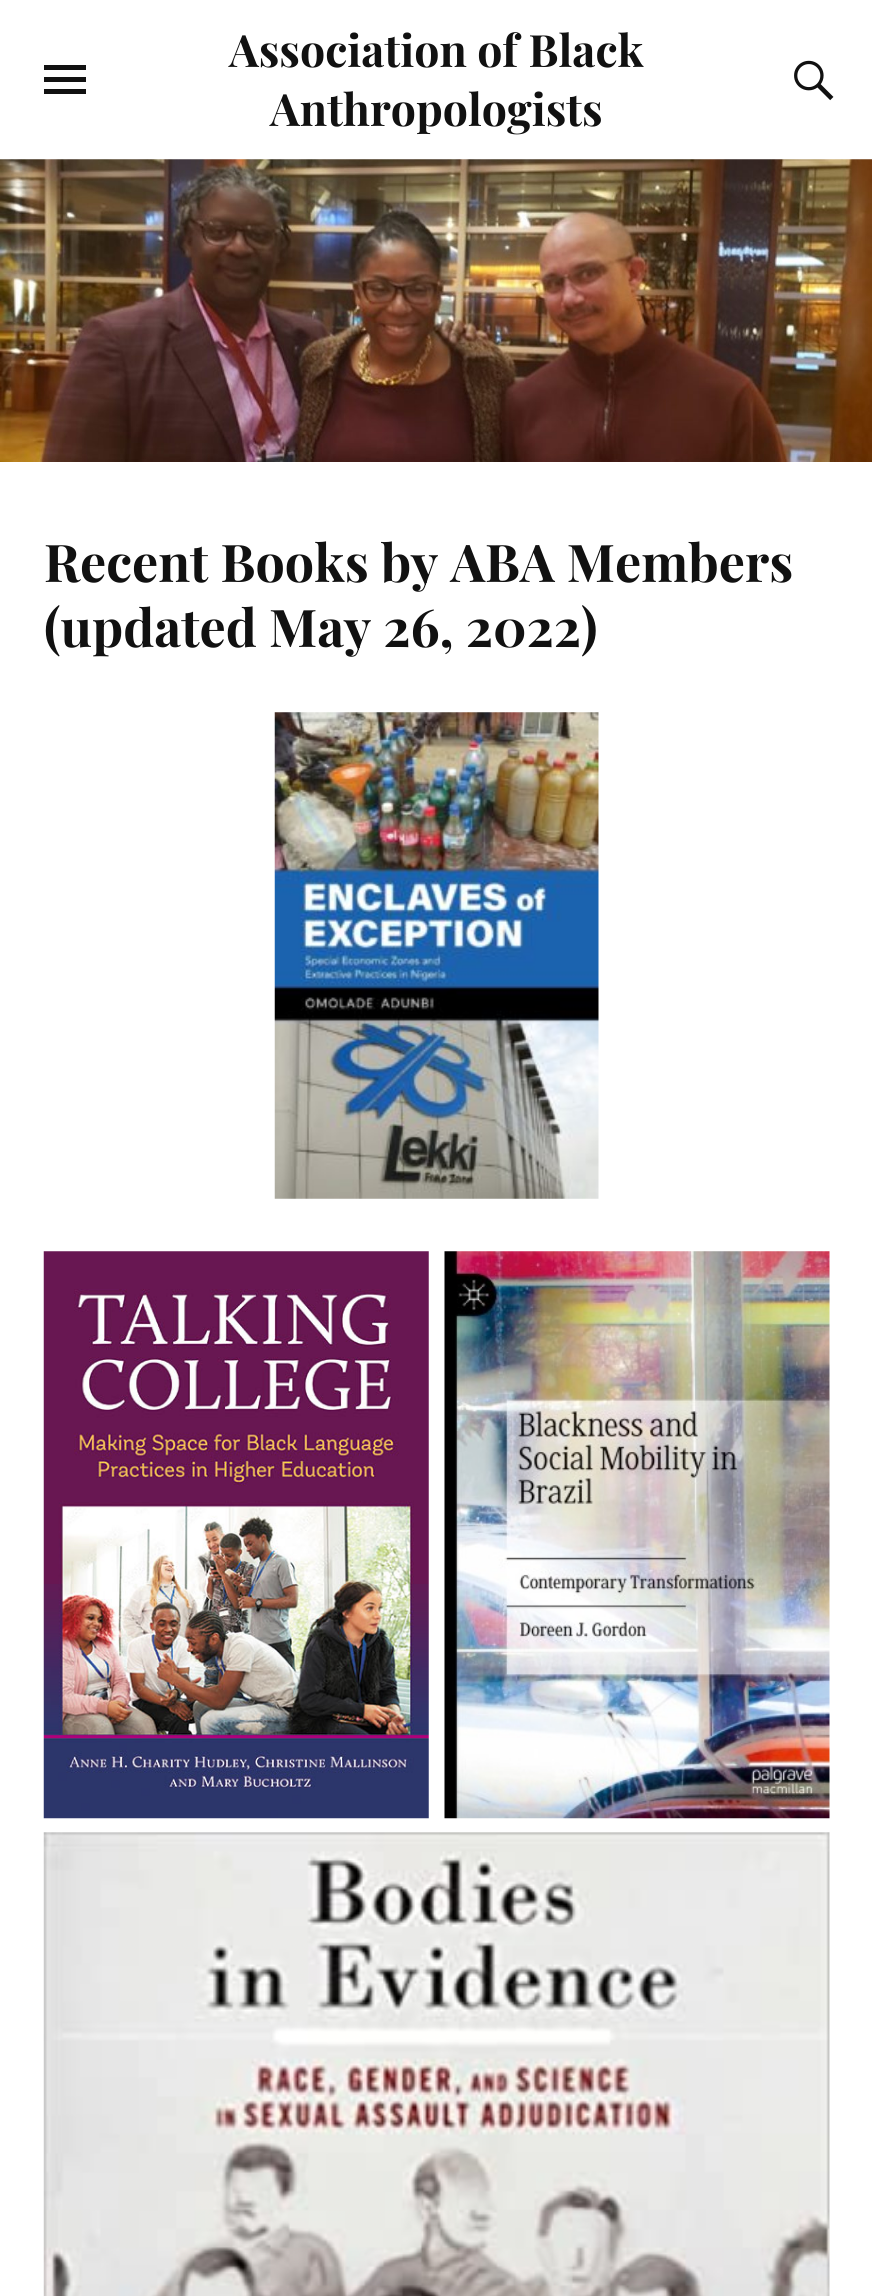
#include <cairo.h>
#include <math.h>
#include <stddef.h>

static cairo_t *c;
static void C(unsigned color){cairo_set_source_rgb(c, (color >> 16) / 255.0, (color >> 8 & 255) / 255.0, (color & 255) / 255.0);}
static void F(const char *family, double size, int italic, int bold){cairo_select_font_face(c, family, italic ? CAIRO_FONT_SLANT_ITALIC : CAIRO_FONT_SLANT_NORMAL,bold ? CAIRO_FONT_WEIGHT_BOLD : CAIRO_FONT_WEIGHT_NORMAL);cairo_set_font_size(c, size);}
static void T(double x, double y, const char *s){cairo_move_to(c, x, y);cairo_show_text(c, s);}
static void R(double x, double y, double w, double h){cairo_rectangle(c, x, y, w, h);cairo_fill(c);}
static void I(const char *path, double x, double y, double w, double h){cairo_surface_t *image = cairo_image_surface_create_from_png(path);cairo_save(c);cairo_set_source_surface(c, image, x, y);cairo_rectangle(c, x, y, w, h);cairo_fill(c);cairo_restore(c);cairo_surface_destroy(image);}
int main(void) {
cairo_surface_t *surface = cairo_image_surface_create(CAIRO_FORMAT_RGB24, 872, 2296);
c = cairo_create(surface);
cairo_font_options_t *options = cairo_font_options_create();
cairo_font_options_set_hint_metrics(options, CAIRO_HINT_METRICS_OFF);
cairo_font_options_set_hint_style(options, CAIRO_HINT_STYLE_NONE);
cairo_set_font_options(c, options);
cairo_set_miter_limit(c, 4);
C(0xffffff);
cairo_paint(c);
F("Playfair Display",44.6,0,1);
C(0x111111);
T(229,67,"Association of Black");
T(270,126,"Anthropologists");
R(44,65,42,5);
R(44,77,42,5);
R(44,89,42,5);
I("1.png",794,60,40,41);
I("2.png",0,159,872,303);
F("Playfair Display",52,0,1);
T(44,582,"Recent Books by ABA Members");
T(44,647,"(updated May 26, 2022)");
I("3.png",274,712,325,487);
I("4.png",43,1251,386,568);
I("5.png",444,1251,386,568);
I("6.png",43,1832,787,464);
cairo_surface_write_to_png(surface, "o.png");
cairo_font_options_destroy(options);
cairo_destroy(c);
cairo_surface_destroy(surface);
return 0;
}
